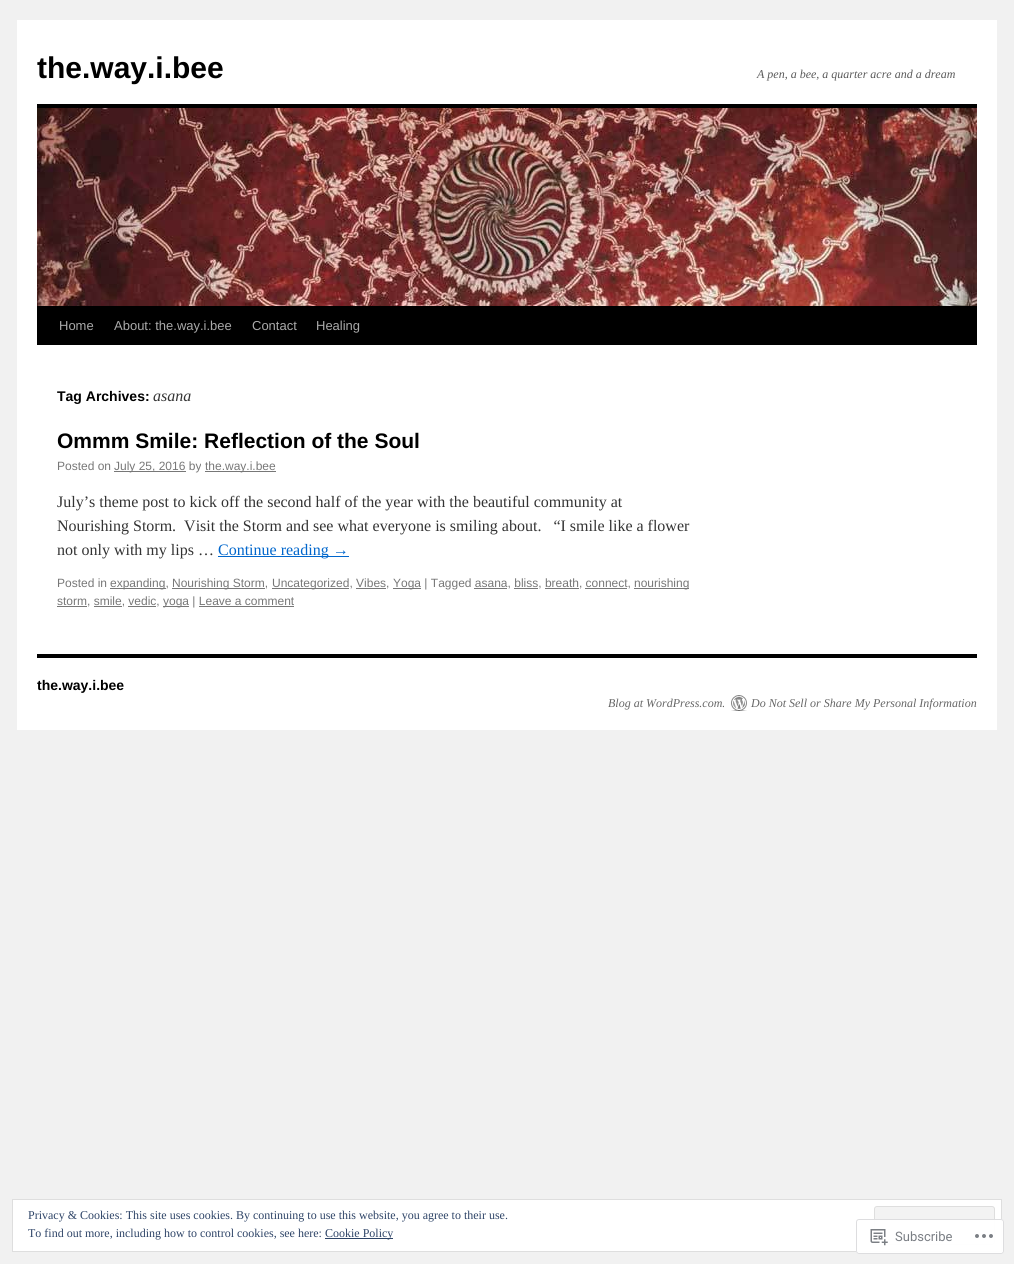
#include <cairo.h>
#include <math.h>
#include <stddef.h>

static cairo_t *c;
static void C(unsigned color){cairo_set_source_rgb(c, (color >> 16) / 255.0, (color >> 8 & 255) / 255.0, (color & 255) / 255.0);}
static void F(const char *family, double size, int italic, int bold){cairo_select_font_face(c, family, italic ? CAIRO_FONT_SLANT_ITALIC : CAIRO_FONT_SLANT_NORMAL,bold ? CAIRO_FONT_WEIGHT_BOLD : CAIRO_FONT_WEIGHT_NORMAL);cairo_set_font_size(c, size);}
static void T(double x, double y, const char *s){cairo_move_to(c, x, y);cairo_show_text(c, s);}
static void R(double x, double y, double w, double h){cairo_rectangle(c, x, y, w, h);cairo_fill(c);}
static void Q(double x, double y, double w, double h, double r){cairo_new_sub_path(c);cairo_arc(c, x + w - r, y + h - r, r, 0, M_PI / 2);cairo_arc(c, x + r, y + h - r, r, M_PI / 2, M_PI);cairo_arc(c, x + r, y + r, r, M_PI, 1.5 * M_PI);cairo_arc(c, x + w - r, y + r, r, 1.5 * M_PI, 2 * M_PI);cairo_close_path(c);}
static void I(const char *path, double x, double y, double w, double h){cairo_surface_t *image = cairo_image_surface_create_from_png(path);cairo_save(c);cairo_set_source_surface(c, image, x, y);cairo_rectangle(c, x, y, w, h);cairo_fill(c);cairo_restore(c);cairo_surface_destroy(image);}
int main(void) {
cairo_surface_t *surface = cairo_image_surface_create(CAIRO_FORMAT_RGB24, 1014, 1264);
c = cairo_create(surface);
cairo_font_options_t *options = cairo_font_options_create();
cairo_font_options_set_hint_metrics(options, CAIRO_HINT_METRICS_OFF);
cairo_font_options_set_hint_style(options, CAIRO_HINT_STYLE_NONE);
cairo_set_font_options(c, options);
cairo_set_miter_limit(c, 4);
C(0xf1f1f1);
cairo_paint(c);
C(0xffffff);
R(17,20,980,710);
F("Liberation Sans",30,0,1);
C(0x000000);
T(37,78,"the.way.i.bee");
F("Liberation Serif",12,1,0);
C(0x595959);
T(757,78,"A pen, a bee, a quarter acre and a dream");
C(0x000000);
R(37,104,940,4);
R(37,306,940,39);
I("1.png",37,108,940,198);
F("Liberation Sans",13,0,0);
C(0xaaaaaa);
T(59,330,"Home");
T(114,330,"About: the.way.i.bee");
T(252,330,"Contact");
T(316,330,"Healing");
F("Liberation Sans",14,0,1);
C(0x000000);
T(57,401,"Tag Archives:");
F("Liberation Serif",16,1,0);
C(0x333333);
T(153,401,"asana");
F("Liberation Sans",21,0,1);
C(0x000000);
T(57,448,"Ommm Smile: Reflection of the Soul");
F("Liberation Sans",12,0,0);
C(0x777777);
T(57,470,"Posted on");
R(114,471,72,1);
T(114,470,"July 25, 2016 by");
R(205,471,71,1);
T(205,470,"the.way.i.bee");
F("Liberation Serif",16,0,0);
C(0x333333);
T(57,507,"July’s theme post to kick off the second half of the year with the beautiful community at");
T(57,531,"Nourishing Storm.  Visit the Storm and see what everyone is smiling about.   “I smile like a flower");
T(57,555,"not only with my lips …");
C(0x0066cc);
R(218,556,131,1);
T(218,555,"Continue reading →");
F("Liberation Sans",12,0,0);
C(0x777777);
T(57,587,"Posted in");
R(110,588,56,1);
T(110,587,"expanding,");
R(172,588,93,1);
T(172,587,"Nourishing Storm,");
R(272,588,77,1);
T(272,587,"Uncategorized, Vibes,");
R(356,588,30,1);
R(393,588,28,1);
T(393,587,"Yoga | Tagged asana, bliss, breath, connect,");
R(634,588,55,1);
T(634,587,"nourishing");
R(474,588,33,1);
R(514,588,24,1);
R(545,588,34,1);
R(585,588,42,1);
R(57,606,30,1);
T(57,605,"storm, smile, vedic,");
R(94,606,28,1);
R(128,606,28,1);
R(163,606,26,1);
T(163,605,"yoga | Leave a comment");
R(199,606,95,1);
C(0x000000);
R(37,654,940,4);
F("Liberation Sans",14,0,1);
T(37,690,"the.way.i.bee");
F("Liberation Serif",12,1,0);
C(0x666666);
T(608,707,"Blog at WordPress.com.");
I("2.png",731,695,16,16);
T(751,707,"Do Not Sell or Share My Personal Information");
C(0xffffff);
cairo_rectangle(c,12.5,1199.5,989,52);
cairo_fill_preserve(c);
C(0xdedede);
cairo_set_line_width(c,1);
cairo_stroke(c);
F("Liberation Serif",12,0,0);
C(0x2e4467);
T(28,1219,"Privacy & Cookies: This site uses cookies. By continuing to use this website, you agree to their use.");
C(0xf3f3f3);
Q(874.5,1206.5,120,38,2.5);
cairo_fill_preserve(c);
C(0xdedede);
cairo_stroke(c);
C(0x2e4467);
T(28,1237,"To find out more, including how to control cookies, see here:");
R(325,1238,68,1);
T(325,1237,"Cookie Policy");
cairo_set_source_rgba(c,1,1,1,0.98);
Q(856,1219,148,35,3);
cairo_fill(c);
Q(856.5,1219.5,147,34,2.5);
cairo_set_source_rgba(c,0.863,0.863,0.871,0.98);
cairo_stroke(c);
I("3.png",870,1229,18,17);
F("Roboto",13,0,0);
C(0x7a7e84);
T(895,1241,"Subscribe");
I("4.png",975,1234,18,4);
cairo_surface_write_to_png(surface, "o.png");
cairo_font_options_destroy(options);
cairo_destroy(c);
cairo_surface_destroy(surface);
return 0;
}
